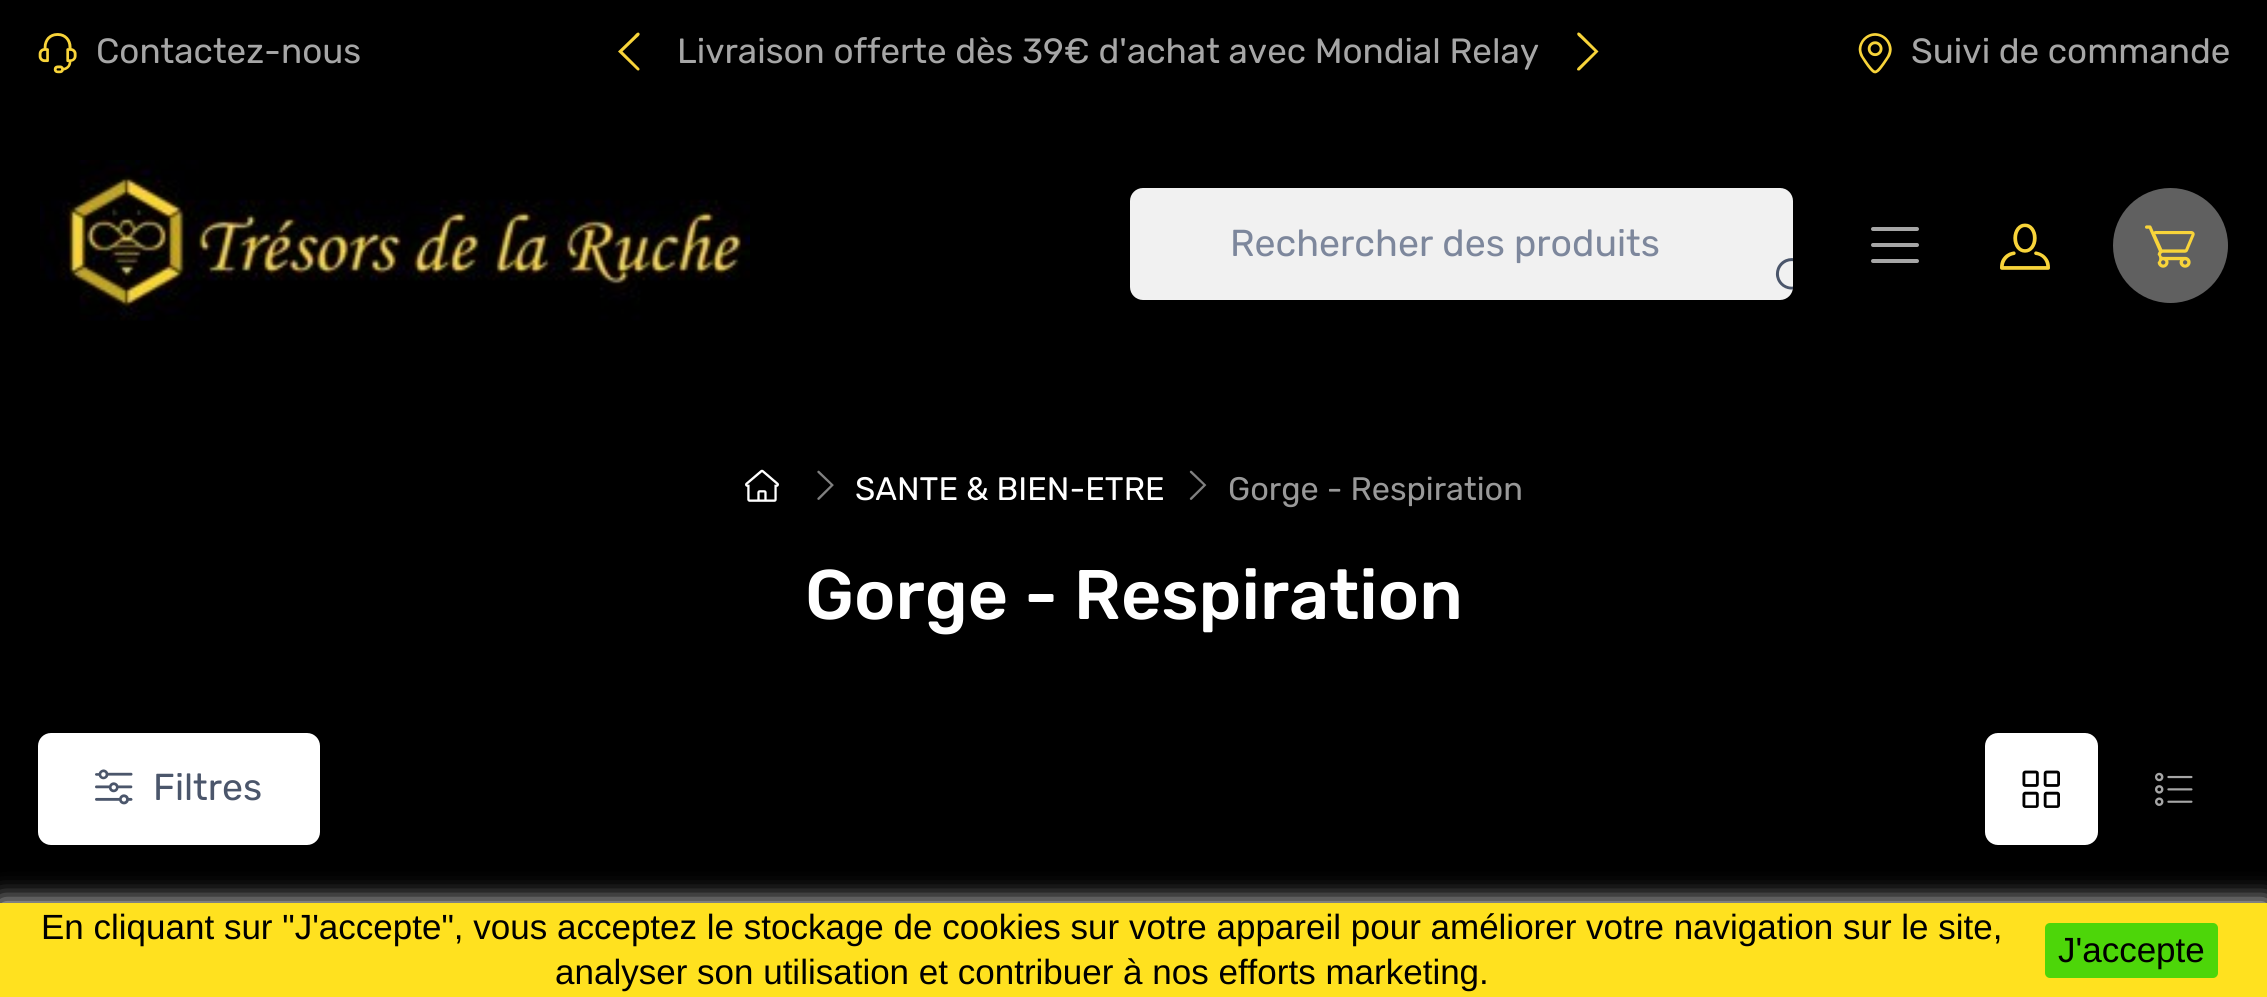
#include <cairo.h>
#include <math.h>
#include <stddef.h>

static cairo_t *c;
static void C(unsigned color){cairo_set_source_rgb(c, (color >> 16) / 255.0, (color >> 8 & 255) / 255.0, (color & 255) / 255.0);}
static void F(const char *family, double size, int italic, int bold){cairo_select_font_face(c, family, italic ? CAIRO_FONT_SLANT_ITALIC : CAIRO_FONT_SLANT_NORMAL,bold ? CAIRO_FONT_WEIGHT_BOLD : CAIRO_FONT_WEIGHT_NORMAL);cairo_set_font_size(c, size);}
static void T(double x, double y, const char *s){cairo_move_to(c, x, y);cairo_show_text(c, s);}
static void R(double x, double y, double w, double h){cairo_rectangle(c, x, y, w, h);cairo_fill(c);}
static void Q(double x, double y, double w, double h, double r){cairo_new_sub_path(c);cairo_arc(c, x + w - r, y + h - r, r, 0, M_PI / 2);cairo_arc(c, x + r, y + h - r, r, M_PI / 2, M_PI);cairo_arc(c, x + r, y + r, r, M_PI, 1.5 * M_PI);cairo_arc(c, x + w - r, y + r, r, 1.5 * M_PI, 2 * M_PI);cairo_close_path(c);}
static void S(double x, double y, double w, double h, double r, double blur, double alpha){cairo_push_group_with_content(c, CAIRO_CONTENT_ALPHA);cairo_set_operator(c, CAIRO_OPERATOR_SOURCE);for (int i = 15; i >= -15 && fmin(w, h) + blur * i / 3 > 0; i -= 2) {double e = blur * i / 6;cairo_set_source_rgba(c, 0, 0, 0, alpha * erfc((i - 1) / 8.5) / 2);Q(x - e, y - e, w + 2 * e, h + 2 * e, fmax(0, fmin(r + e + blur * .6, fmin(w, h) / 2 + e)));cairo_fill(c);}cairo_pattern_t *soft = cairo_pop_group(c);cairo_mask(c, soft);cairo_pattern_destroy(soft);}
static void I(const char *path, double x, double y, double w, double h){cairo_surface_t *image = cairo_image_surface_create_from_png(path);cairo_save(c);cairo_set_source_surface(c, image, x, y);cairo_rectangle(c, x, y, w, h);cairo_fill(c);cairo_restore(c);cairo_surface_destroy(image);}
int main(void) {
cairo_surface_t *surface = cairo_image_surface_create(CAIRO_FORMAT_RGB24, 2267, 997);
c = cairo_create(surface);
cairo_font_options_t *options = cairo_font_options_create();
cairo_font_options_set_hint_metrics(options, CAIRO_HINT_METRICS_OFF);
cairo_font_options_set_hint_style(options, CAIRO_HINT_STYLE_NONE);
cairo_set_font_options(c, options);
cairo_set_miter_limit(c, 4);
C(0x000000);
cairo_paint(c);
I("1.png",38,33,39,41);
F("Rubik",35,0,0);
C(0xa6a6a6);
T(96,63,"Contactez-nous");
C(0xf8d43a);
cairo_new_path(c);
cairo_move_to(c,637,70);
cairo_curve_to(c,638.5,71.5,640.5,69.5,639,68);
cairo_line_to(c,622.5,51.5);
cairo_line_to(c,636.5,38);
cairo_curve_to(c,637,37.5,640.5,35,639.5,33.5);
cairo_curve_to(c,638,30.5,634.5,35.5,634,36);
cairo_line_to(c,618,51.5);
cairo_close_path(c);
cairo_fill(c);
cairo_new_path(c);
cairo_move_to(c,1580,70);
cairo_curve_to(c,1579,71,1577,70.5,1577,69.5);
cairo_line_to(c,1577.5,68);
cairo_line_to(c,1594.5,51.5);
cairo_line_to(c,1580.5,38);
cairo_curve_to(c,1579.5,37,1575.5,34.5,1578,32.5);
cairo_curve_to(c,1578.5,32.5,1579,32.5,1580,33);
cairo_line_to(c,1598.5,51.5);
cairo_close_path(c);
cairo_fill(c);
C(0xa6a6a6);
T(677,63,"Livraison offerte dès 39€ d'achat avec Mondial Relay");
I("2.png",1858,33,34,41);
T(1911,63,"Suivi de commande");
I("3.png",40,160,710,161);
C(0xf1f1f1);
Q(1130,188,663,112,13);
cairo_fill(c);
F("Rubik",37.5,0,0);
C(0x7d879c);
T(1230,256,"Rechercher des produits");
I("4.png",1775,258,18,32);
cairo_new_path(c);
cairo_move_to(c,1873,229);
cairo_line_to(c,1917,229);
cairo_move_to(c,1873,245);
cairo_line_to(c,1917,245);
cairo_move_to(c,1873,261);
cairo_line_to(c,1917,261);
C(0xa6a6a6);
cairo_set_line_width(c,4);
cairo_set_line_cap(c,CAIRO_LINE_CAP_ROUND);
cairo_stroke(c);
I("5.png",2000,223,50,47);
C(0x606060);
cairo_arc(c,2170.5,245.5,57.5,0,2 * M_PI);
cairo_fill(c);
I("6.png",2145,225,50,43);
I("7.png",745,469,34,33);
I("8.png",817,470,17,30);
F("Rubik",32.5,0,0);
C(0xffffff);
T(855,500,"SANTE & BIEN-ETRE");
I("9.png",1189,470,18,30);
C(0x999999);
T(1228,500,"Gorge - Respiration");
F("Rubik Medium",70,0,0);
C(0xffffff);
T(805,619,"Gorge - Respiration");
Q(38,733,282,112,13);
cairo_fill(c);
I("10.png",95,769,38,36);
F("Rubik",37.5,0,0);
C(0x4b566b);
T(153,800,"Filtres");
C(0xffffff);
Q(1985,733,113,112,13);
cairo_fill(c);
I("11.png",2022,770,38,38);
I("12.png",2155,772,38,34);
C(0xffffff);
S(0,903,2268,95,0,12.5,1);
C(0xffe11f);
R(0,903,2267,94);
F("Liberation Sans",35,0,0);
C(0x000000);
T(41,939,"En cliquant sur \"J'accepte\", vous acceptez le stockage de cookies sur votre appareil pour améliorer votre navigation sur le site,");
T(555,984,"analyser son utilisation et contribuer à nos efforts marketing.");
C(0x4dd609);
Q(2045,923,173,55,5);
cairo_fill(c);
C(0x000000);
T(2058,962,"J'accepte");
cairo_surface_write_to_png(surface, "o.png");
cairo_font_options_destroy(options);
cairo_destroy(c);
cairo_surface_destroy(surface);
return 0;
}
